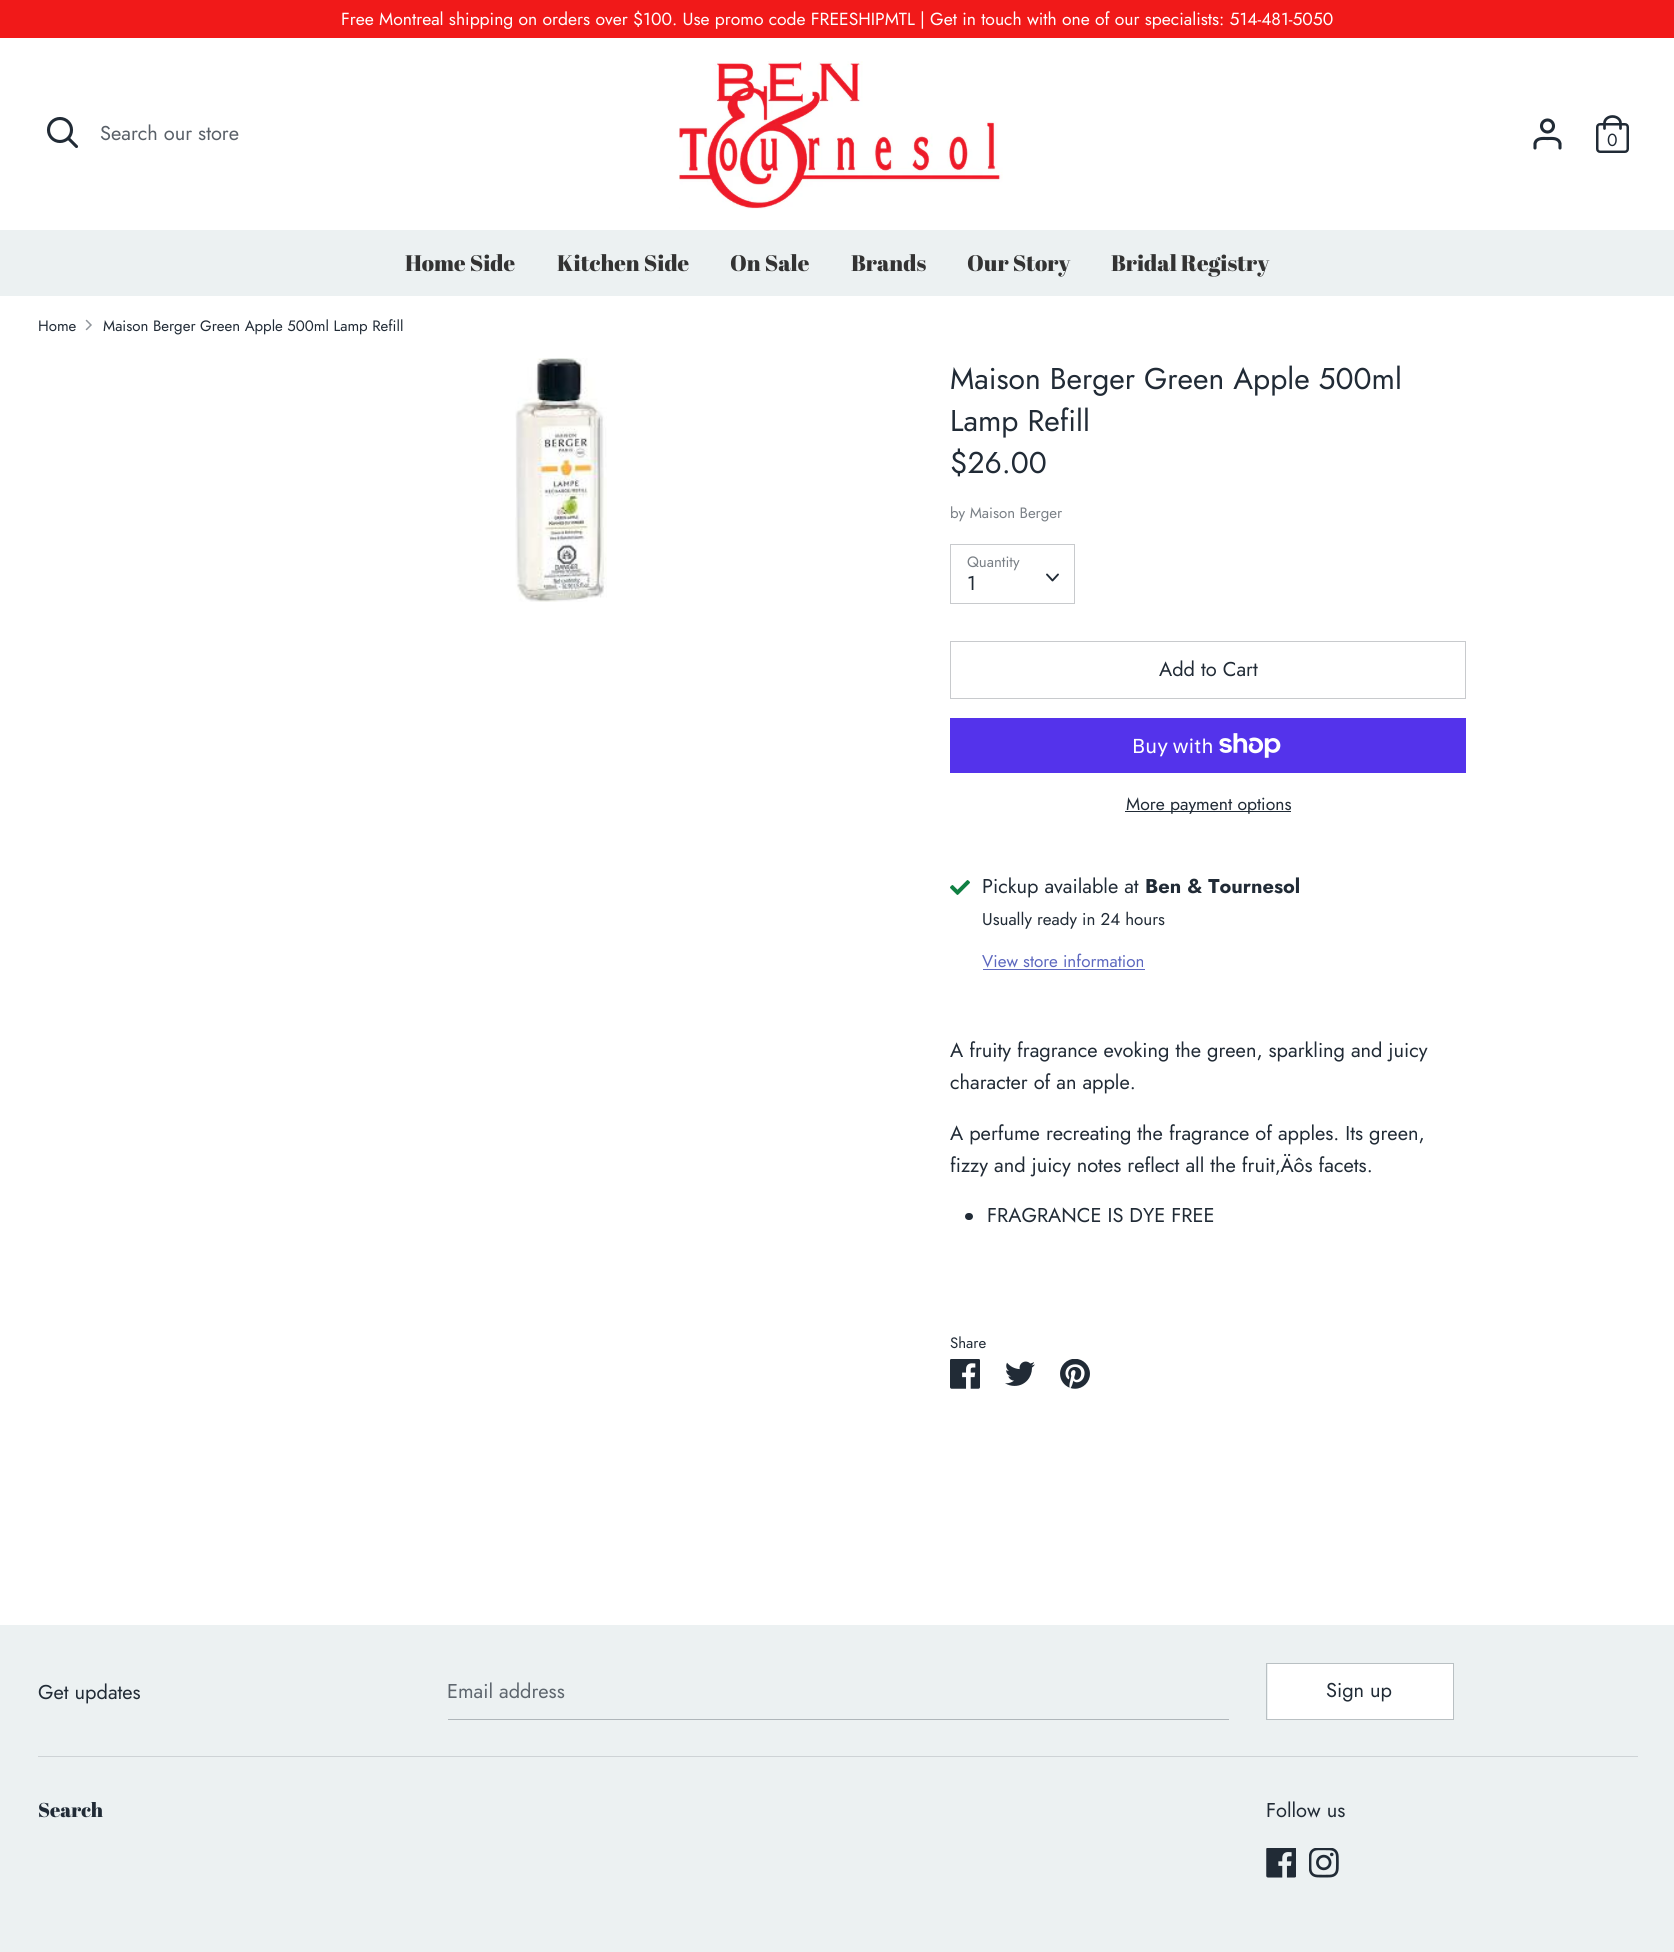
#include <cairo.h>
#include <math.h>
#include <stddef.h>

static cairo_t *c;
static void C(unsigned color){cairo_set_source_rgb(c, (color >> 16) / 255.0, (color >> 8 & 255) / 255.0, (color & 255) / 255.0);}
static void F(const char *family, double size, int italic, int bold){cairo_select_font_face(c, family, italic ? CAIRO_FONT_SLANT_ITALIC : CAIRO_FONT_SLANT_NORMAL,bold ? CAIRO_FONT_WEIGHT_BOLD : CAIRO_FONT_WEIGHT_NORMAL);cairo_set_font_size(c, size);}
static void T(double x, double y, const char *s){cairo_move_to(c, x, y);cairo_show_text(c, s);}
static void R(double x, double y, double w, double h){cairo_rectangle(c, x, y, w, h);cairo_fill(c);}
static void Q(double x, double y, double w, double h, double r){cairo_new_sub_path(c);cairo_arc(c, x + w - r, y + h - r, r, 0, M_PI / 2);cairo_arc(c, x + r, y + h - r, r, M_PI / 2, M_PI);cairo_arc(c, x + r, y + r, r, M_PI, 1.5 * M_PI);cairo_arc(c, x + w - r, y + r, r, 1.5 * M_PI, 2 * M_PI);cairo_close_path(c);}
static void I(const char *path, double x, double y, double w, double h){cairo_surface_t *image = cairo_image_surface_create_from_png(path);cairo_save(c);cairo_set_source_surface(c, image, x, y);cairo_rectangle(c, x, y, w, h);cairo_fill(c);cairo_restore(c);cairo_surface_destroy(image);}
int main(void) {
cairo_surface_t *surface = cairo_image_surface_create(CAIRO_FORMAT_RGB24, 1674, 1952);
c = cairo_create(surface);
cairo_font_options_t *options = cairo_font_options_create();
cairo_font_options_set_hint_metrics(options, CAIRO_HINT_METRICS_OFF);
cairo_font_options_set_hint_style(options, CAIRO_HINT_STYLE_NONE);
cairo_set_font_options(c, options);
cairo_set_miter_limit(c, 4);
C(0xffffff);
cairo_paint(c);
C(0xf11919);
R(0,0,1674,38);
F("Jost",17.5,0,0);
C(0xffffff);
T(341,25,"Free Montreal shipping on orders over $100. Use promo code FREESHIPMTL | Get in touch with one of our specialists: 514-481-5050");
cairo_new_path(c);
cairo_arc(c,60,130,11.5,0,2 * M_PI);
C(0x212b36);
cairo_set_line_width(c,3.1);
cairo_stroke(c);
cairo_new_path(c);
cairo_move_to(c,76.5,146.5);
cairo_line_to(c,68.5,138.5);
cairo_set_line_cap(c,CAIRO_LINE_CAP_ROUND);
cairo_stroke(c);
F("Jost",20,0,0);
C(0x596068);
T(100,140,"Search our store");
I("1.png",679,61,324,148);
cairo_new_path(c);
cairo_move_to(c,1560,148);
cairo_line_to(c,1560,143.5);
cairo_curve_to(c,1558.5,137.5,1552,138.5,1547.5,138.5);
cairo_curve_to(c,1543,138.5,1536.5,137.5,1535,143.5);
cairo_line_to(c,1535,148);
C(0x212b36);
cairo_stroke(c);
cairo_arc(c,1547.5,126,6,0,2 * M_PI);
cairo_set_line_cap(c,CAIRO_LINE_CAP_BUTT);
cairo_stroke(c);
Q(1597.25,124.25,30.5,27.5,2.75);
cairo_set_line_width(c,2.5);
cairo_stroke(c);
cairo_new_path(c);
cairo_move_to(c,1604.5,128.5);
cairo_line_to(c,1604.5,123);
cairo_curve_to(c,1604.5,119.5,1608,116.5,1612.5,116.5);
cairo_curve_to(c,1617,116.5,1620.5,119.5,1620.5,123);
cairo_line_to(c,1620.5,128.5);
cairo_set_line_width(c,2.7);
cairo_set_line_cap(c,CAIRO_LINE_CAP_ROUND);
cairo_stroke(c);
F("Jost",17.5,0,0);
T(1607,146,"0");
C(0xecf1f2);
R(0,230,1674,66);
F("Abril Fatface",22.5,0,0);
C(0x333333);
T(405,271,"Home Side");
T(557,271,"Kitchen Side");
T(730,271,"On Sale");
T(851,271,"Brands");
T(967,271,"Our Story");
T(1111,271,"Bridal Registry");
F("Jost",15,0,0);
C(0x212b36);
T(38,331,"Home");
cairo_new_path(c);
cairo_move_to(c,86.5,329.5);
cairo_line_to(c,91,325);
cairo_line_to(c,86.5,320.5);
C(0x90959b);
cairo_set_line_width(c,1.5);
cairo_stroke(c);
C(0x212b36);
T(103,331,"Maison Berger Green Apple 500ml Lamp Refill");
I("2.png",515,358,92,244);
F("Jost",30,0,0);
T(950,389,"Maison Berger Green Apple 500ml");
T(950,431,"Lamp Refill");
T(950,473,"$26.00");
F("Jost",15,0,0);
C(0x7a8086);
T(950,518,"by Maison Berger");
cairo_rectangle(c,950.5,544.5,124,59);
C(0xc8cacd);
cairo_set_line_width(c,1);
cairo_set_line_cap(c,CAIRO_LINE_CAP_BUTT);
cairo_stroke(c);
C(0x7a8086);
T(967,567,"Quantity");
F("Jost",20,0,0);
C(0x212b36);
T(967,590,"1");
cairo_new_path(c);
cairo_move_to(c,1047,574.5);
cairo_line_to(c,1052.5,580.5);
cairo_line_to(c,1058,574.5);
cairo_set_line_width(c,1.9);
cairo_set_line_cap(c,CAIRO_LINE_CAP_ROUND);
cairo_set_line_join(c,CAIRO_LINE_JOIN_ROUND);
cairo_stroke(c);
cairo_rectangle(c,950.5,641.5,515,57);
C(0xc8cacd);
cairo_set_line_width(c,1);
cairo_set_line_cap(c,CAIRO_LINE_CAP_BUTT);
cairo_set_line_join(c,CAIRO_LINE_JOIN_MITER);
cairo_stroke(c);
C(0x212b36);
T(1159,676,"Add to Cart");
C(0x5433eb);
R(950,718,516,55);
F("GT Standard",20,0,0);
C(0xffffff);
T(1132,753,"Buy with");
I("3.png",1219,733,62,25);
C(0x212b36);
R(1125,811,166,1);
F("Jost",17.5,0,0);
T(1126,810,"More payment options");
I("4.png",950,880,20,15);
F("Jost",20,0,0);
T(982,893,"Pickup available at");
F("Jost",20,0,1);
T(1145,893,"Ben & Tournesol");
F("Jost",17,0,0);
T(982,925,"Usually ready in 24 hours");
C(0x5d68bf);
T(982,967,"View store information");
R(983,969,162,1);
F("Jost",20,0,0);
C(0x212b36);
T(950,1057,"A fruity fragrance evoking the green, sparkling and juicy");
T(950,1089,"character of an apple.");
T(950,1140,"A perfume recreating the fragrance of apples. Its green,");
T(950,1172,"fizzy and juicy notes reflect all the fruit‚Äôs facets.");
Q(965,1213,8,7,3.5);
cairo_fill(c);
T(987,1222,"FRAGRANCE IS DYE FREE");
F("Jost",15,0,0);
T(950,1348,"Share");
I("5.png",950,1359,30,30);
I("6.png",1005,1361,30,25);
I("7.png",1060,1359,30,30);
C(0xecf1f2);
R(0,1625,1674,327);
F("Jost",20,0,0);
C(0x212b36);
T(38,1699,"Get updates");
C(0xafb6ba);
R(448,1719,781,1);
C(0x5e666e);
T(447,1698,"Email address");
cairo_rectangle(c,1266.5,1663.5,187,56);
C(0xb9c0c3);
cairo_stroke(c);
C(0xffffff);
R(1268,1664,185,55);
C(0x212b36);
T(1326,1697,"Sign up");
C(0xced3d6);
R(38,1756,1600,1);
F("Abril Fatface",20,0,0);
C(0x212b36);
T(38,1817,"Search");
F("Jost",20,0,0);
T(1266,1817,"Follow us");
I("8.png",1266,1848,30,30);
I("9.png",1309,1848,30,30);
cairo_surface_write_to_png(surface, "o.png");
cairo_font_options_destroy(options);
cairo_destroy(c);
cairo_surface_destroy(surface);
return 0;
}
